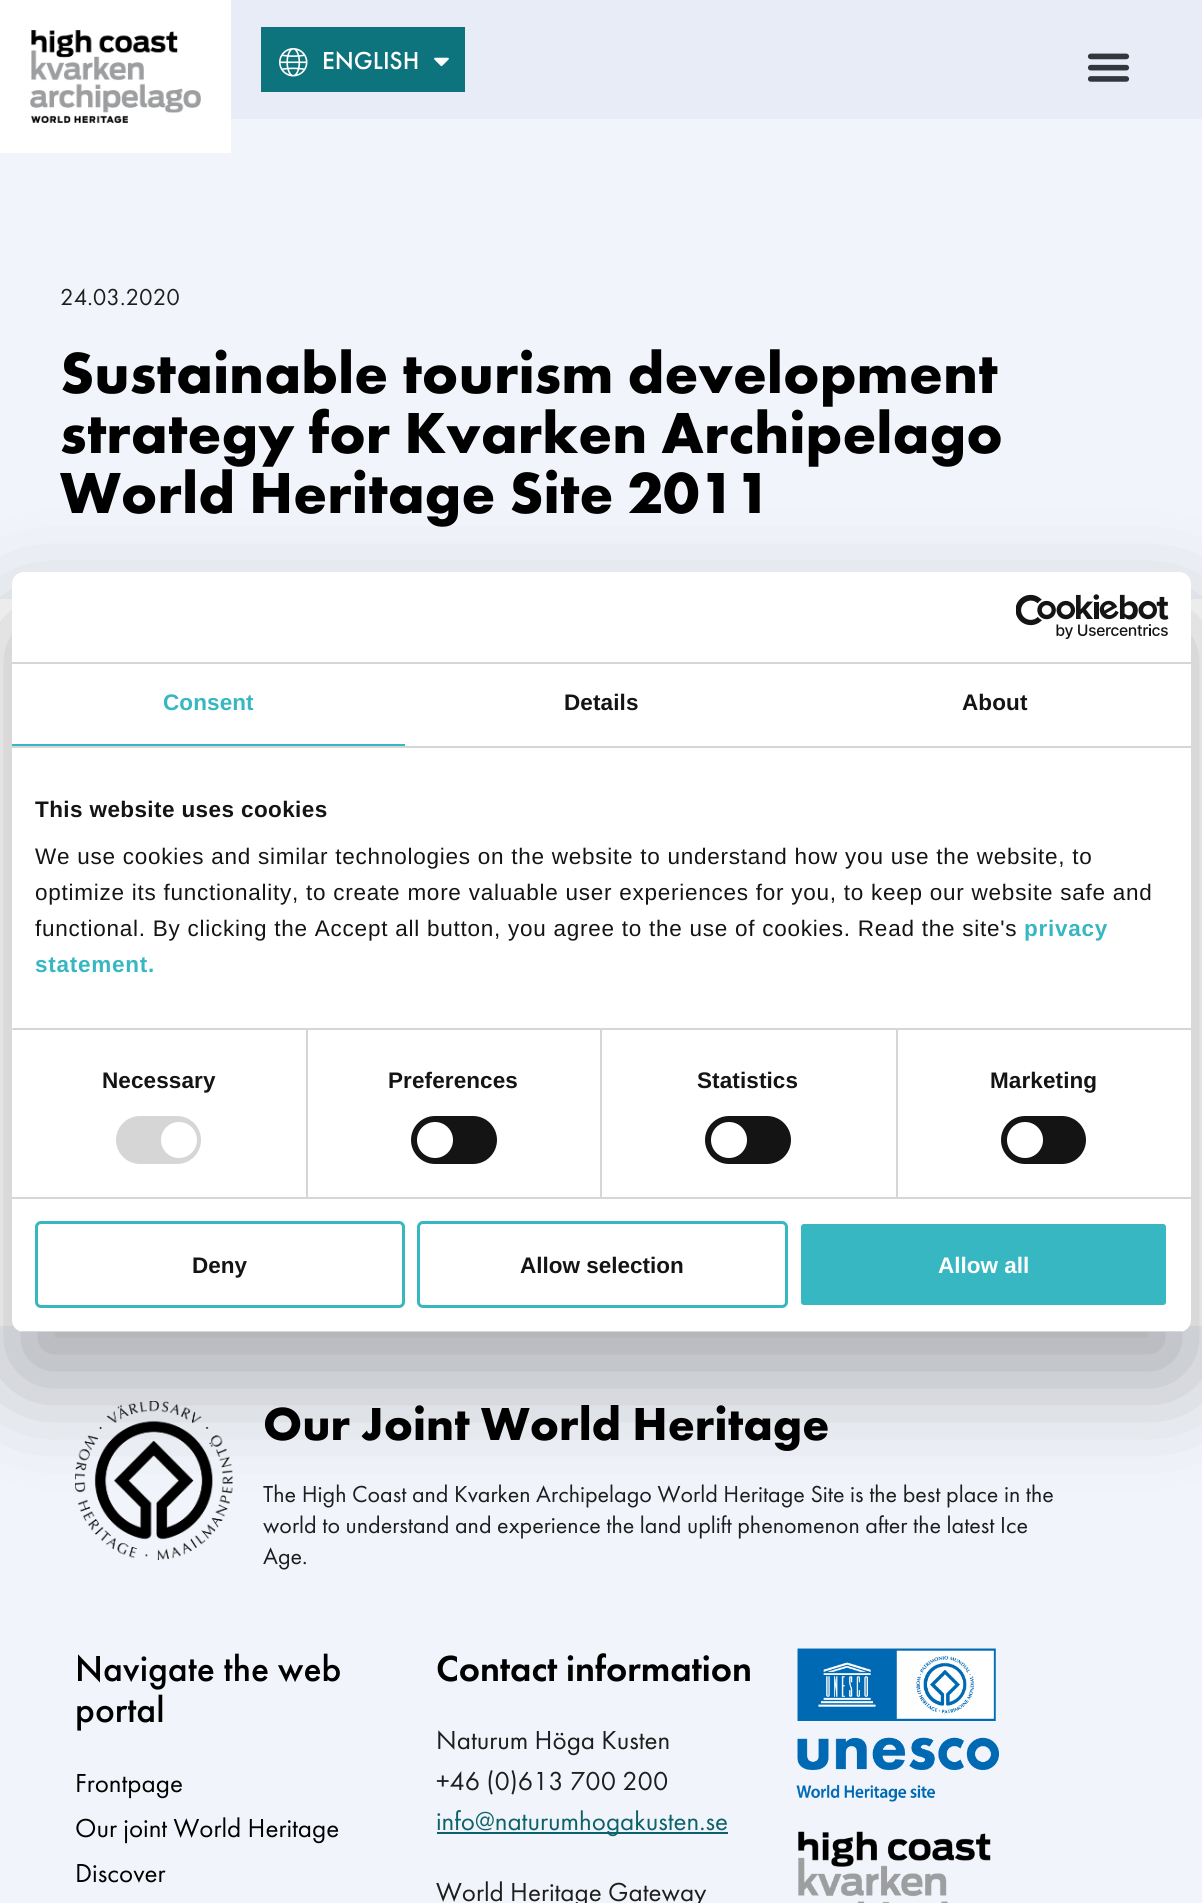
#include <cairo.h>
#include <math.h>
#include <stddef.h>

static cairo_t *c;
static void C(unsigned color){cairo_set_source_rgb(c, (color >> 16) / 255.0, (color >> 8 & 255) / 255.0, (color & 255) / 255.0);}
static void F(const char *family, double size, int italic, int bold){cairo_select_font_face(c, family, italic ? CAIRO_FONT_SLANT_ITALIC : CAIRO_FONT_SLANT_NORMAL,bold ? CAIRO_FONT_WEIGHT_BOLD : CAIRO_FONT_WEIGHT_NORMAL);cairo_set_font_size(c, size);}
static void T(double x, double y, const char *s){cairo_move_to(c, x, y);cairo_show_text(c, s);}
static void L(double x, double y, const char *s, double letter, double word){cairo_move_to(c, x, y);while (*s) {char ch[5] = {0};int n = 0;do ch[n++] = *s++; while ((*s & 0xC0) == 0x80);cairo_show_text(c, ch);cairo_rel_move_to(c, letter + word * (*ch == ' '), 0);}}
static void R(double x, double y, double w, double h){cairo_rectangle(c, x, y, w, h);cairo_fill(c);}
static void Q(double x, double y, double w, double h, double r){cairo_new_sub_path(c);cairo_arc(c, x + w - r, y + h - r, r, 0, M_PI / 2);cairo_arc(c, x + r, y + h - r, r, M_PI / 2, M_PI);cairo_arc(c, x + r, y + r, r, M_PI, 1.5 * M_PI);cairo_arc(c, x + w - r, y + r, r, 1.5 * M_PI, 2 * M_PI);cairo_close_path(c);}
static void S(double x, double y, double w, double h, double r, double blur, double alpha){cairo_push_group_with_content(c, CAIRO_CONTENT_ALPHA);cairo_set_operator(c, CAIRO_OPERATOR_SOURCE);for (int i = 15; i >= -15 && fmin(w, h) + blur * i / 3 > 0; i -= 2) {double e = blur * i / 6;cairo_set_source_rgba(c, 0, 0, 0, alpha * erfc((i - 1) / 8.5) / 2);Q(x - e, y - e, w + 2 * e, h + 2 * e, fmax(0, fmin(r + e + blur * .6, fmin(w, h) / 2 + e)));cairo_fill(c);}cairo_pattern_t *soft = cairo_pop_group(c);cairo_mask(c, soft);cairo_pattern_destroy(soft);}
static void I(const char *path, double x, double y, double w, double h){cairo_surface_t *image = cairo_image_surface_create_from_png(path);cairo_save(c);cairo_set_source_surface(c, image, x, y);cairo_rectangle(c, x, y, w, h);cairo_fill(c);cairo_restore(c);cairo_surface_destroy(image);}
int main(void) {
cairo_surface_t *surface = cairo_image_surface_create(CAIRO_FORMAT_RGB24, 1202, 1903);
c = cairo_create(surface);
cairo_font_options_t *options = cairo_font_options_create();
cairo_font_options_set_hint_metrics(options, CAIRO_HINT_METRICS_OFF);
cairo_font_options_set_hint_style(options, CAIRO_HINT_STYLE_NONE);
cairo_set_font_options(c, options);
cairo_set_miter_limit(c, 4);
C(0xffffff);
cairo_paint(c);
C(0xe7ecf7);
R(231,0,971,119);
C(0xf1f4fa);
R(0,119,1202,480);
C(0xffffff);
R(0,119,231,34);
I("1.png",30,30,171,93);
C(0x0d737c);
R(261,27,204,65);
I("2.png",279,48,29,29);
F("Futura PT Medium",25.5,0,0);
C(0xffffff);
T(322,69,"ENGLISH");
I("3.png",434,57,15,10);
I("4.png",1087,53,43,29);
F("Futura PT",24,0,0);
C(0x1e1e1e);
T(60,305,"24.03.2020");
F("Futura PT",60,0,1);
C(0x000000);
T(60,393,"Sustainable tourism development");
T(60,453,"strategy for Kvarken Archipelago");
T(60,513,"World Heritage Site 2011");
C(0xf1f4fa);
R(0,1326,1202,577);
I("5.png",75,1401,158,159);
F("Futura PT",48,0,1);
C(0x000000);
T(263,1440,"Our Joint World Heritage");
F("Futura PT",24,0,0);
C(0x1e1e1e);
T(263,1502,"The High Coast and Kvarken Archipelago World Heritage Site is the best place in the");
T(263,1533,"world to understand and experience the land uplift phenomenon after the latest Ice");
T(263,1564,"Age.");
F("Futura PT Medium",37.5,0,0);
C(0x000000);
T(75,1681,"Navigate the web");
T(75,1722,"portal");
F("Futura PT",27,0,0);
T(75,1792,"Frontpage");
T(75,1837,"Our joint World Heritage");
T(75,1882,"Discover");
F("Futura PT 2 Medium",37.5,0,0);
T(436,1681,"Contact information");
F("Futura PT",27,0,0);
C(0x1e1e1e);
T(436,1749,"Naturum Höga Kusten");
T(436,1790,"+46 (0)613 700 200");
C(0x0c626a);
R(437,1832,291,2);
T(436,1830,"info@naturumhogakusten.se");
C(0x1e1e1e);
T(436,1901,"World Heritage Gateway");
I("6.png",796,1648,203,154);
I("7.png",798,1831,193,72);
C(0x000000);
S(12,620,1179,760,12,51,.3);
C(0xffffff);
Q(12,572,1179,760,12);
cairo_fill(c);
C(0xd6d6d6);
R(12,662,1179,2);
I("8.png",1016,594,153,45);
R(12,746,1179,2);
C(0x37b7c1);
R(12,744,393,2);
F("Liberation Sans",22.5,0,1);
L(163,710,"Consent",.1,0);
C(0x141414);
L(564,710,"Details",.1,0);
L(962,710,"About",.1,0);
C(0xd6d6d6);
R(306,1029,2,168);
R(600,1029,2,168);
R(896,1029,2,168);
R(12,1028,1179,2);
C(0x141414);
L(35,817,"This website uses cookies",.4,0);
F("Liberation Sans",22.5,0,0);
L(35,864,"We use cookies and similar technologies on the website to understand how you use the website, to",.75,0);
L(35,900,"optimize its functionality, to create more valuable user experiences for you, to keep our website safe and",.75,0);
L(35,936,"functional. By clicking the Accept all button, you agree to the use of cookies. Read the site's",.75,0);
F("Liberation Sans",22.5,0,1);
C(0x37b7c1);
L(1024,936,"privacy",.75,0);
L(35,972,"statement.",.75,0);
C(0xd6d6d6);
R(12,1197,1179,2);
C(0xe5e5e5);
R(12,1028,1,2);
C(0x141414);
L(102,1088,"Necessary",.1,0);
C(0xd6d6d6);
Q(116,1116,85,48,24);
cairo_fill(c);
C(0xffffff);
cairo_arc(c,179,1140,18,0,2 * M_PI);
cairo_fill(c);
C(0x141414);
L(388,1088,"Preferences",.1,0);
Q(411,1116,86,48,24);
cairo_fill(c);
C(0xffffff);
cairo_arc(c,435,1140,18,0,2 * M_PI);
cairo_fill(c);
C(0x141414);
L(697,1088,"Statistics",.1,0);
Q(705,1116,86,48,24);
cairo_fill(c);
C(0xffffff);
cairo_arc(c,729,1140,18,0,2 * M_PI);
cairo_fill(c);
C(0x141414);
L(990,1088,"Marketing",.1,0);
Q(1001,1116,85,48,24);
cairo_fill(c);
C(0xffffff);
cairo_arc(c,1025,1140,18,0,2 * M_PI);
cairo_fill(c);
cairo_save(c);
Q(12,572,1179,760,12);
cairo_clip(c);
C(0xd6d6d6);
R(12,1331,1179,1);
cairo_restore(c);
Q(36.5,1222.5,367,84,4.5);
C(0x37b7c1);
cairo_set_line_width(c,3);
cairo_stroke(c);
C(0x141414);
T(192,1273,"Deny");
Q(418.5,1222.5,368,84,4.5);
C(0x37b7c1);
cairo_stroke(c);
C(0x141414);
T(520,1273,"Allow selection");
C(0x37b7c1);
Q(799.5,1222.5,368,84,4.5);
cairo_fill_preserve(c);
C(0xffffff);
cairo_stroke(c);
T(938,1273,"Allow all");
cairo_surface_write_to_png(surface, "o.png");
cairo_font_options_destroy(options);
cairo_destroy(c);
cairo_surface_destroy(surface);
return 0;
}
